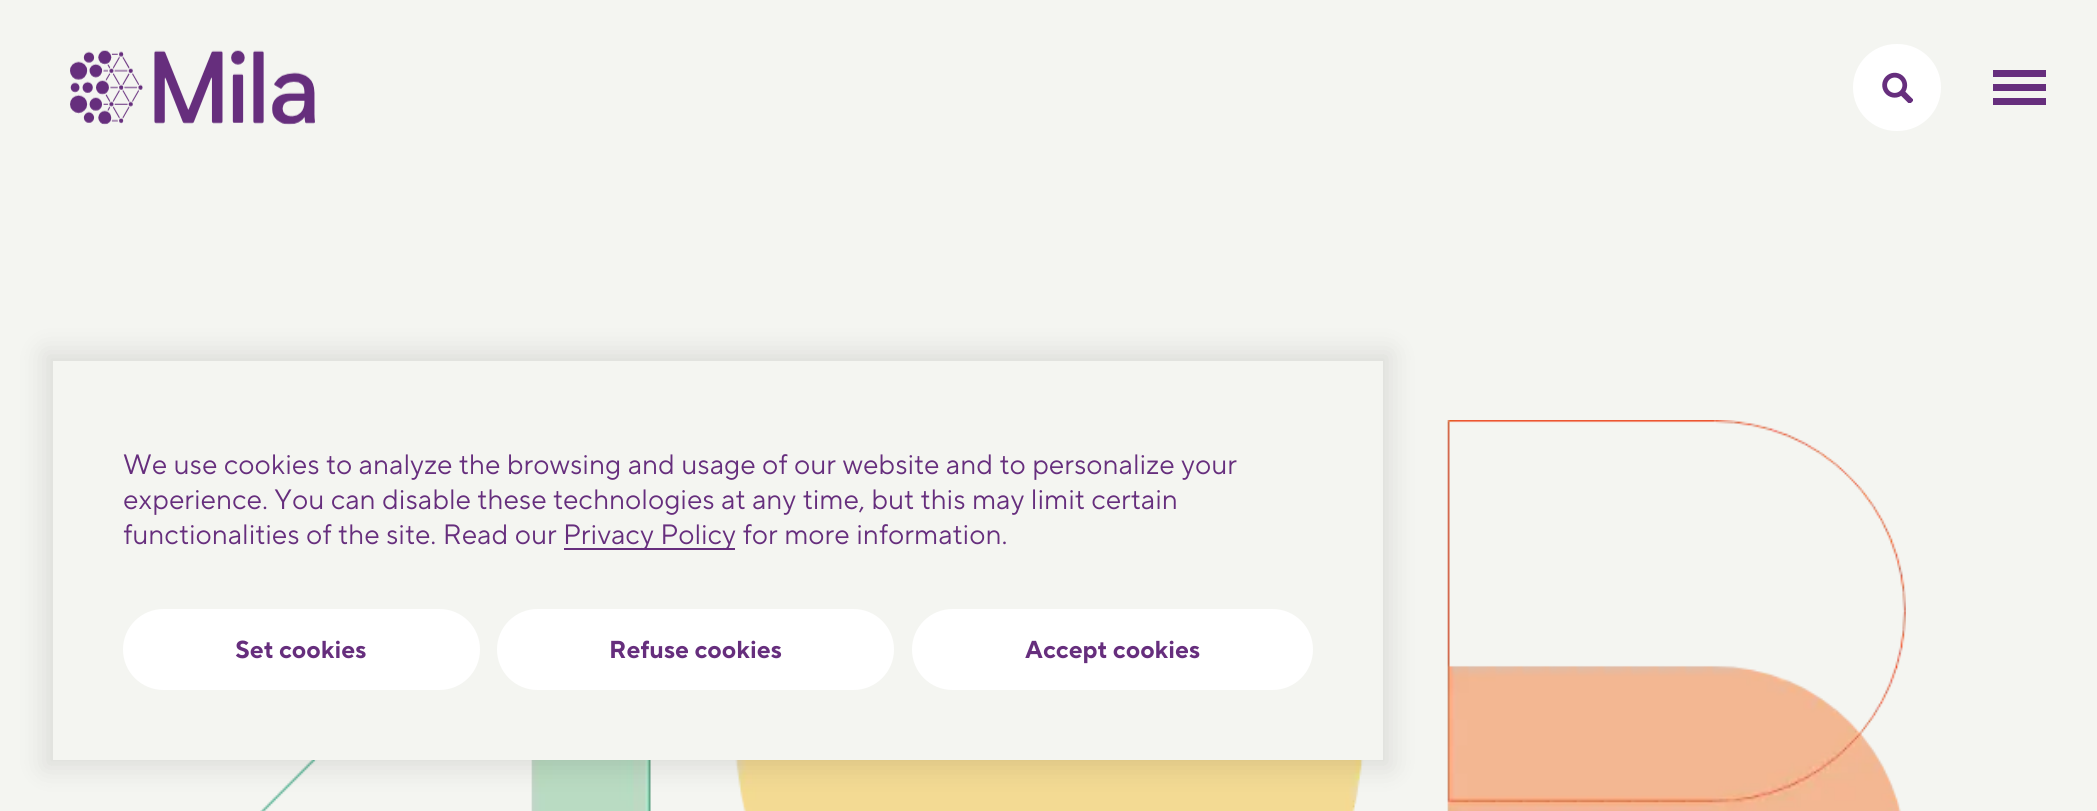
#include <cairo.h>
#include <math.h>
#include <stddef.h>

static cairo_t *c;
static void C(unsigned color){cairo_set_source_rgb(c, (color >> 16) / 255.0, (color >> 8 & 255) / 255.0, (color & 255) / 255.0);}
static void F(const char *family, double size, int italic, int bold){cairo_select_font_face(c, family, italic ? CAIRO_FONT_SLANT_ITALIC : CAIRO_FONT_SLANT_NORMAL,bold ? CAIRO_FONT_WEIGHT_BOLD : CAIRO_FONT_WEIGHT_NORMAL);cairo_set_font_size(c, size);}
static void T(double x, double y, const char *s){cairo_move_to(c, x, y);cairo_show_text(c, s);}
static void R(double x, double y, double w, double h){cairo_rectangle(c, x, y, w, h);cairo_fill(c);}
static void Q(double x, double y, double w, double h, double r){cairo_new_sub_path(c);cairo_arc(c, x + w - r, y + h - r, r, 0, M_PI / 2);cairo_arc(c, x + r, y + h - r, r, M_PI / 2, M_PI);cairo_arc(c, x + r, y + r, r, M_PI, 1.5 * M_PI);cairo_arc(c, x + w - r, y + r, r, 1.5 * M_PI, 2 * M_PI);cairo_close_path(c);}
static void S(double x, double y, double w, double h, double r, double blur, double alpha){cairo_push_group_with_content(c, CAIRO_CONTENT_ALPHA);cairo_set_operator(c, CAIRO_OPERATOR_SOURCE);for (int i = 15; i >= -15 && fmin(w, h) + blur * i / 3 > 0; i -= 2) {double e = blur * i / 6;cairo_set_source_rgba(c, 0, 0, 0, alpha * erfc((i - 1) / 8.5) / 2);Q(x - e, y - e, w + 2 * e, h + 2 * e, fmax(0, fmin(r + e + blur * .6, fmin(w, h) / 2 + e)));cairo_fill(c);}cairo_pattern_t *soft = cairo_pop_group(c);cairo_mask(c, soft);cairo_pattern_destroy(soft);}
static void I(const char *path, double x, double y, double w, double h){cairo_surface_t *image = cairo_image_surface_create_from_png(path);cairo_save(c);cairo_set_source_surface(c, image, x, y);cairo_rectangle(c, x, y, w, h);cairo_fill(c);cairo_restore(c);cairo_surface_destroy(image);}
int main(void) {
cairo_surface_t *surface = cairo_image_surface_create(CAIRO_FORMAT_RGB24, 2097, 811);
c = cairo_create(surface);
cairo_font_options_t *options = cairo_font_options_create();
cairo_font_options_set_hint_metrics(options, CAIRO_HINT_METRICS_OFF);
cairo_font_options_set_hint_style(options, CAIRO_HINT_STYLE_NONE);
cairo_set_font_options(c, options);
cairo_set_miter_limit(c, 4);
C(0xf4f5f1);
cairo_paint(c);
I("1.png",70,50,245,75);
C(0xffffff);
Q(1853,44,88,87,43.5);
cairo_fill(c);
I("2.png",1882,72,31,31);
C(0x662e7d);
R(1993,84,53,7);
R(1993,70,53,7);
R(1993,98,53,7);
I("3.png",260,420,1646,391);
C(0x000000);
S(44,352,1347,416,0,13,.1);
C(0xf4f5f1);
R(53,361,1330,399);
F("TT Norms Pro",28,0,0);
C(0x662e7d);
T(123,474,"We use cookies to analyze the browsing and usage of our website and to personalize your");
T(123,509,"experience. You can disable these technologies at any time, but this may limit certain");
T(123,544,"functionalities of the site. Read our");
R(564,548,171,2);
T(563,544,"Privacy Policy for more information.");
C(0xffffff);
Q(123,609,357,81,40.5);
cairo_fill(c);
F("TT Norms Pro",24.5,0,1);
C(0x662e7d);
T(235,658,"Set cookies");
C(0xffffff);
Q(497,609,397,81,40.5);
cairo_fill(c);
C(0x662e7d);
T(609,658,"Refuse cookies");
C(0xffffff);
Q(912,609,401,81,40.5);
cairo_fill(c);
C(0x662e7d);
T(1025,658,"Accept cookies");
cairo_surface_write_to_png(surface, "o.png");
cairo_font_options_destroy(options);
cairo_destroy(c);
cairo_surface_destroy(surface);
return 0;
}
